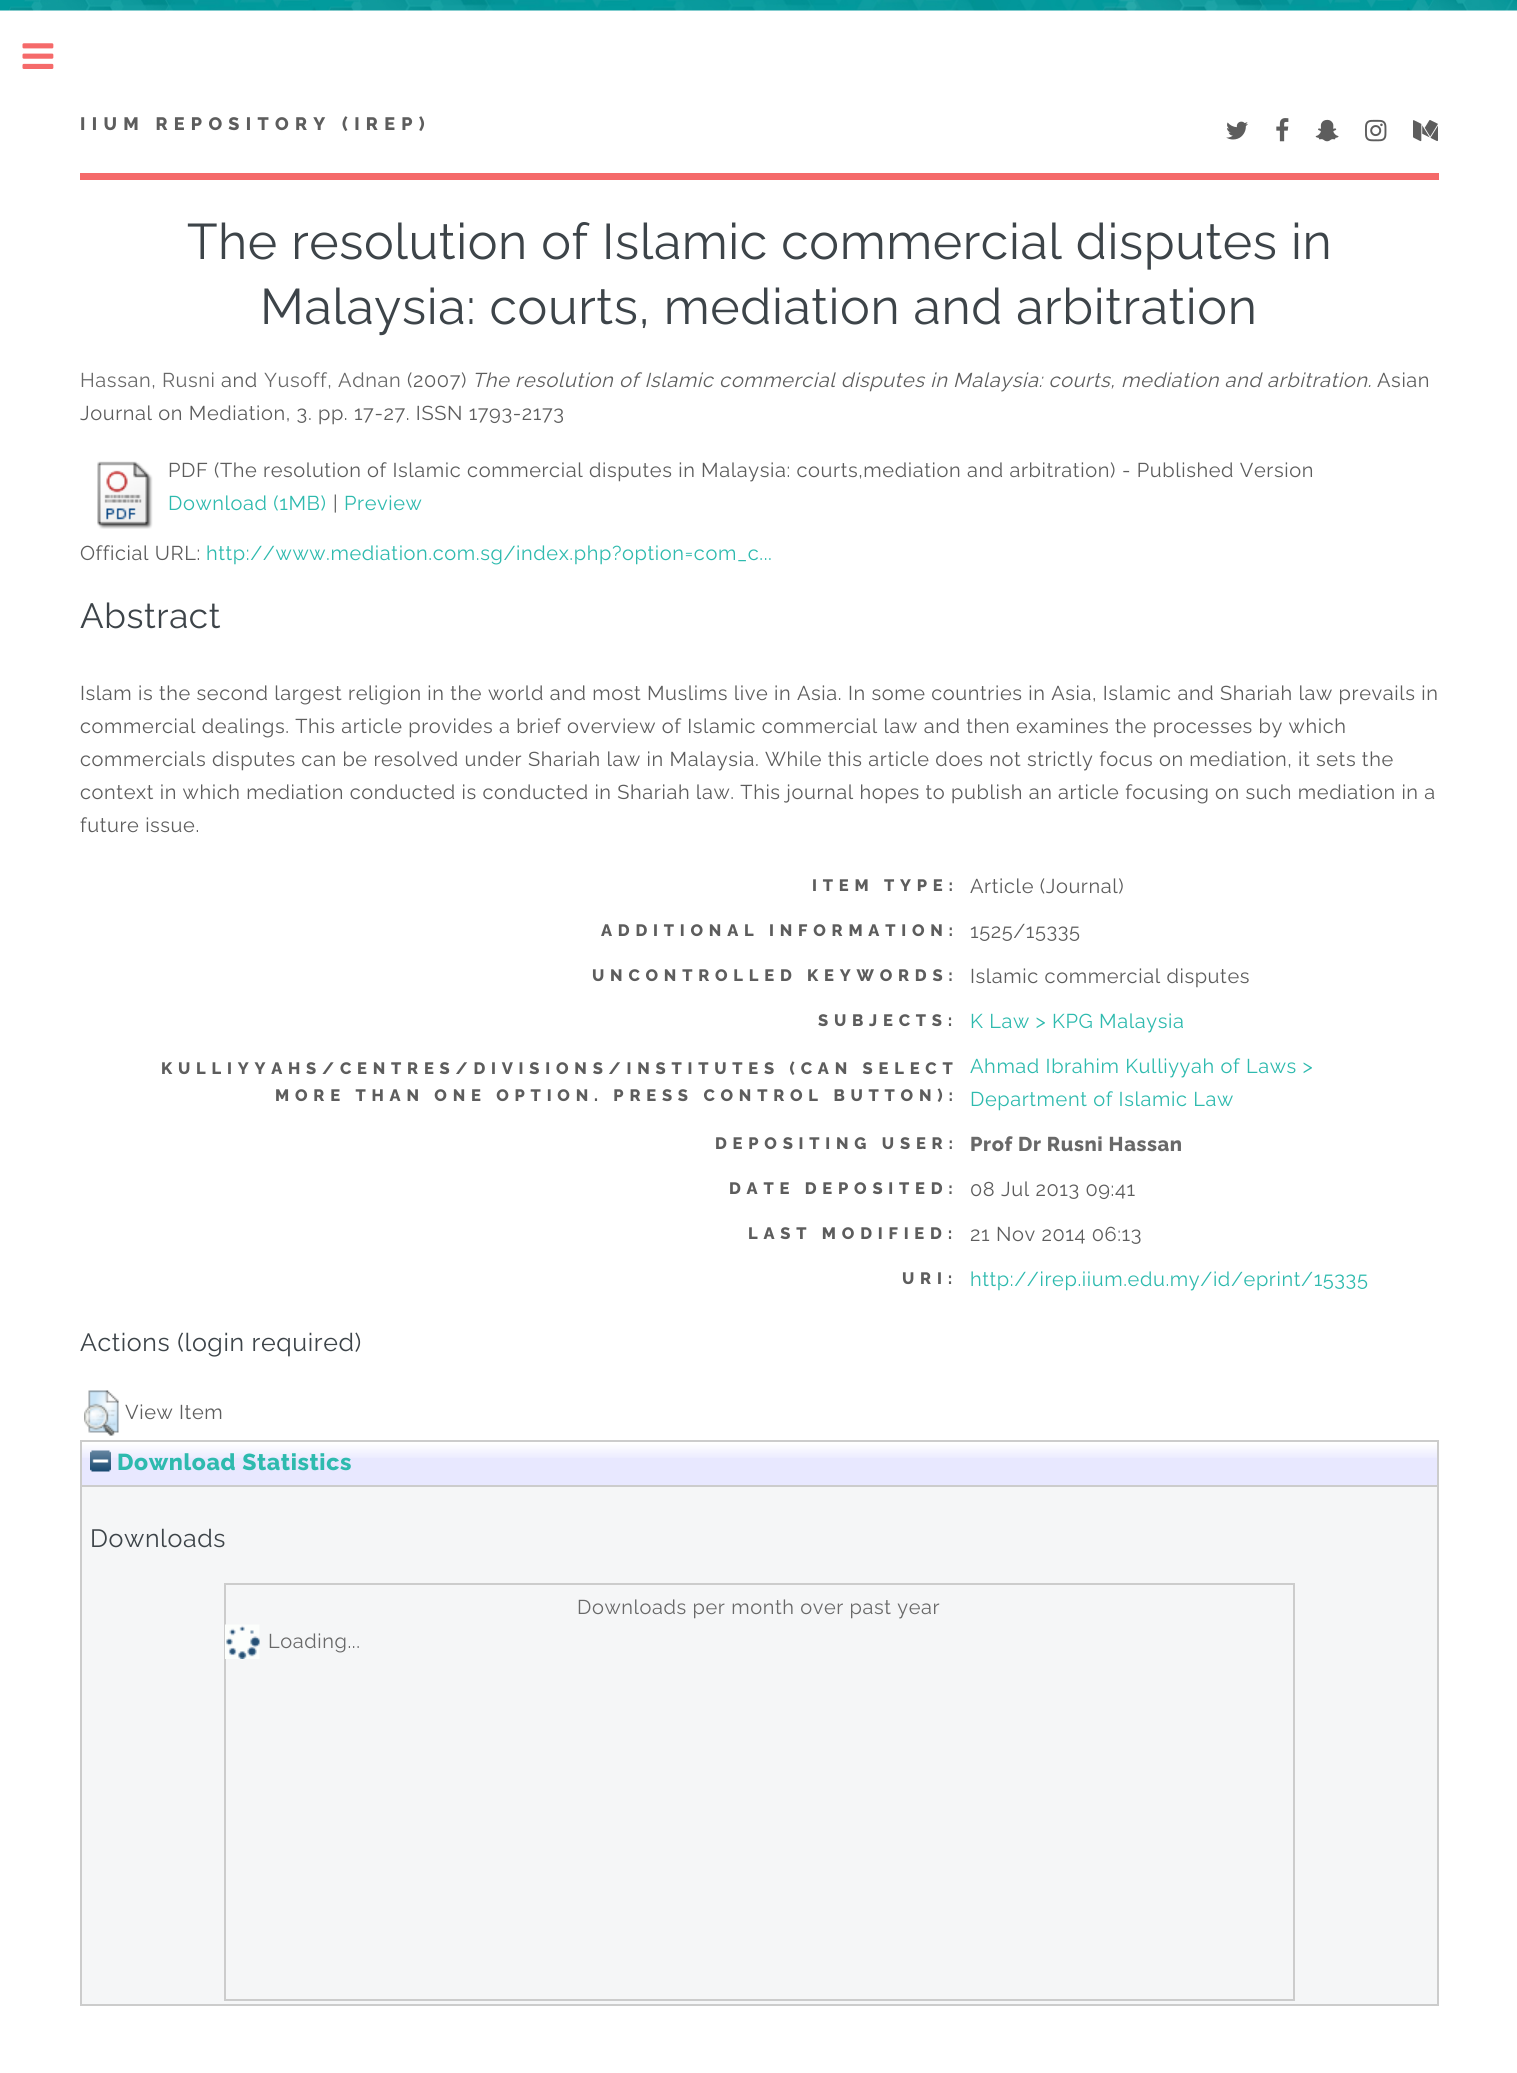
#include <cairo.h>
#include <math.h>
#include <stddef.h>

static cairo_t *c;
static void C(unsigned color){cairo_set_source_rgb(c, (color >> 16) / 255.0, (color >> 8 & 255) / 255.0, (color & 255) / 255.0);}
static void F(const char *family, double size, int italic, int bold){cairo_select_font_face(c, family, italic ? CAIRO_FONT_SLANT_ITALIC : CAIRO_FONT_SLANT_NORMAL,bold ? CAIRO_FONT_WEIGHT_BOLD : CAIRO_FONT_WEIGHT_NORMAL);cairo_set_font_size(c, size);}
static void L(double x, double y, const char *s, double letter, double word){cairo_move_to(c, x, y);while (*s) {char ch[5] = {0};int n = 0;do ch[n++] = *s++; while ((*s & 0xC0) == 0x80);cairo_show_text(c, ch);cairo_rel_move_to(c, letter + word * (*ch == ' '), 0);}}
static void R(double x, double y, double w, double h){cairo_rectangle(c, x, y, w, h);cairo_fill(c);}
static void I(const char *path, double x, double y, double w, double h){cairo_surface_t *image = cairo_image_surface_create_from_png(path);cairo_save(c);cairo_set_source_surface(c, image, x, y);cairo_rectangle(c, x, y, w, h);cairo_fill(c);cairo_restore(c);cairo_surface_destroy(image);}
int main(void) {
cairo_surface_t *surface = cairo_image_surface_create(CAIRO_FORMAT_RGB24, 1517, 2073);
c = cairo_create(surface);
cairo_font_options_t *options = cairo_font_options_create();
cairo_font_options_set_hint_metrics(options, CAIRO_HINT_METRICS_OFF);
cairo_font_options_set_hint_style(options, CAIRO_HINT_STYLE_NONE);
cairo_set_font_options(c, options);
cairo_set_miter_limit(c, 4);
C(0xffffff);
cairo_paint(c);
I("1.png",0,0,1517,11);
I("2.png",22,43,32,26);
C(0xf56a6a);
R(80,173,1359,7);
F("Raleway ExtraBold",18,0,0);
C(0x5d5d5d);
L(80,130,"IIUM REPOSITORY (IREP)",6.3,0);
I("3.png",1226,121,22,19);
I("4.png",1276,118,13,24);
I("5.png",1315,119,24,23);
I("6.png",1365,119,22,23);
I("7.png",1413,120,25,22);
F("Raleway",50,0,0);
C(0x3d4449);
L(187,259,"The resolution of Islamic commercial disputes in",.6,0);
L(260,324,"Malaysia: courts, mediation and arbitration",.6,0);
F("Raleway",20,0,0);
C(0x696969);
L(80,387,"Hassan, Rusni",.6,0);
C(0x5d5d5d);
L(221,387,"and",.6,0);
C(0x696969);
L(264,387,"Yusoff, Adnan",.6,0);
C(0x5d5d5d);
L(407,387,"(2007)",.6,0);
F("Raleway",20,1,0);
L(472,387,"The resolution of Islamic commercial disputes in Malaysia: courts, mediation and arbitration.",.6,0);
F("Raleway",20,0,0);
L(1377,387,"Asian",.6,0);
L(80,420,"Journal on Mediation, 3. pp. 17-27. ISSN 1793-2173",.6,0);
I("8.png",97,461,56,68);
L(168,477,"PDF (The resolution of Islamic commercial disputes in Malaysia: courts,mediation and arbitration)",.6,0);
L(1122,477,"- Published Version",.6,0);
C(0x2ebaae);
L(168,510,"Download (1MB)",.6,0);
C(0x5d5d5d);
L(333,510,"|",.6,0);
C(0x2ebaae);
L(344,510,"Preview",.6,0);
C(0x5d5d5d);
L(80,560,"Official URL:",.6,0);
C(0x2ebaae);
L(206,560,"http://www.mediation.com.sg/index.php?option=com_c...",.6,0);
F("Raleway",35,0,0);
C(0x3d4449);
L(80,628,"Abstract",.6,0);
F("Raleway",20,0,0);
C(0x5d5d5d);
L(80,700,"Islam is the second largest religion in the world and most Muslims live in Asia. In some countries in Asia, Islamic and Shariah law prevails in",.6,0);
L(80,733,"commercial dealings. This article provides a brief overview of Islamic commercial law and then examines the processes by which",.6,0);
L(80,766,"commercials disputes can be resolved under Shariah law in Malaysia. While this article does not strictly focus on mediation, it sets the",.6,0);
L(80,799,"context in which mediation conducted is conducted in Shariah law. This journal hopes to publish an article focusing on such mediation in a",.6,0);
L(80,832,"future issue.",.6,0);
F("Raleway ExtraBold",16.5,0,0);
L(812,891,"ITEM TYPE:",5.78,0);
F("Raleway",20,0,0);
L(970,893,"Article (Journal)",.6,0);
F("Raleway ExtraBold",16.5,0,0);
L(601,936,"ADDITIONAL INFORMATION:",5.78,0);
F("Raleway",20,0,0);
L(970,938,"1525/15335",.6,0);
F("Raleway ExtraBold",16.5,0,0);
L(592,981,"UNCONTROLLED KEYWORDS:",5.78,0);
F("Raleway",20,0,0);
L(970,983,"Islamic commercial disputes",.6,0);
F("Raleway ExtraBold",16.5,0,0);
L(818,1026,"SUBJECTS:",5.78,0);
F("Raleway",20,0,0);
C(0x2ebaae);
L(970,1028,"K Law > KPG Malaysia",.6,0);
F("Raleway ExtraBold",16.5,0,0);
C(0x5d5d5d);
L(161,1074,"KULLIYYAHS/CENTRES/DIVISIONS/INSTITUTES (CAN SELECT",5.78,0);
L(275,1101,"MORE THAN ONE OPTION. PRESS CONTROL BUTTON):",5.78,0);
F("Raleway",20,0,0);
C(0x2ebaae);
L(970,1073,"Ahmad Ibrahim Kulliyyah of Laws >",.6,0);
L(970,1106,"Department of Islamic Law",.6,0);
F("Raleway ExtraBold",16.5,0,0);
C(0x5d5d5d);
L(715,1149,"DEPOSITING USER:",5.78,0);
F("Raleway ExtraBold",20,0,0);
C(0x696969);
L(970,1151,"Prof Dr Rusni Hassan",.6,0);
F("Raleway ExtraBold",16.5,0,0);
C(0x5d5d5d);
L(729,1194,"DATE DEPOSITED:",5.78,0);
F("Raleway",20,0,0);
L(970,1196,"08 Jul 2013 09:41",.6,0);
F("Raleway ExtraBold",16.5,0,0);
L(748,1239,"LAST MODIFIED:",5.78,0);
F("Raleway",20,0,0);
L(970,1241,"21 Nov 2014 06:13",.6,0);
F("Raleway ExtraBold",16.5,0,0);
L(902,1284,"URI:",5.78,0);
F("Raleway",20,0,0);
C(0x2ebaae);
L(970,1286,"http://irep.iium.edu.my/id/eprint/15335",.6,0);
F("Raleway",25,0,0);
C(0x3d4449);
L(80,1351,"Actions (login required)",.6,0);
I("9.png",84,1390,35,46);
F("Raleway",20,0,0);
C(0x5d5d5d);
L(125,1419,"View Item",.6,0);
C(0xe8e8ff);
R(82,1442,1355,43);
I("10.png",82,1442,1355,16);
cairo_rectangle(c,81,1441,1357,45);
C(0xcccccc);
cairo_stroke(c);
I("11.png",90,1450,21,22);
F("Raleway ExtraBold",23,0,0);
C(0x2ebaae);
L(117,1470,"Download Statistics",.6,0);
C(0xf5f6f7);
R(82,1487,1355,517);
C(0xcccccc);
R(1437,1487,2,519);
R(80,2004,1359,2);
R(80,1487,2,519);
F("Raleway",25,0,0);
C(0x3d4449);
L(90,1547,"Downloads",.6,0);
cairo_rectangle(c,225,1584,1069,416);
C(0xcccccc);
cairo_stroke(c);
F("Raleway",20,0,0);
C(0x696969);
L(577,1614,"Downloads per month over past year",.6,0);
I("12.png",225,1624,35,35);
L(268,1648,"Loading...",.6,0);
cairo_surface_write_to_png(surface, "o.png");
cairo_font_options_destroy(options);
cairo_destroy(c);
cairo_surface_destroy(surface);
return 0;
}
